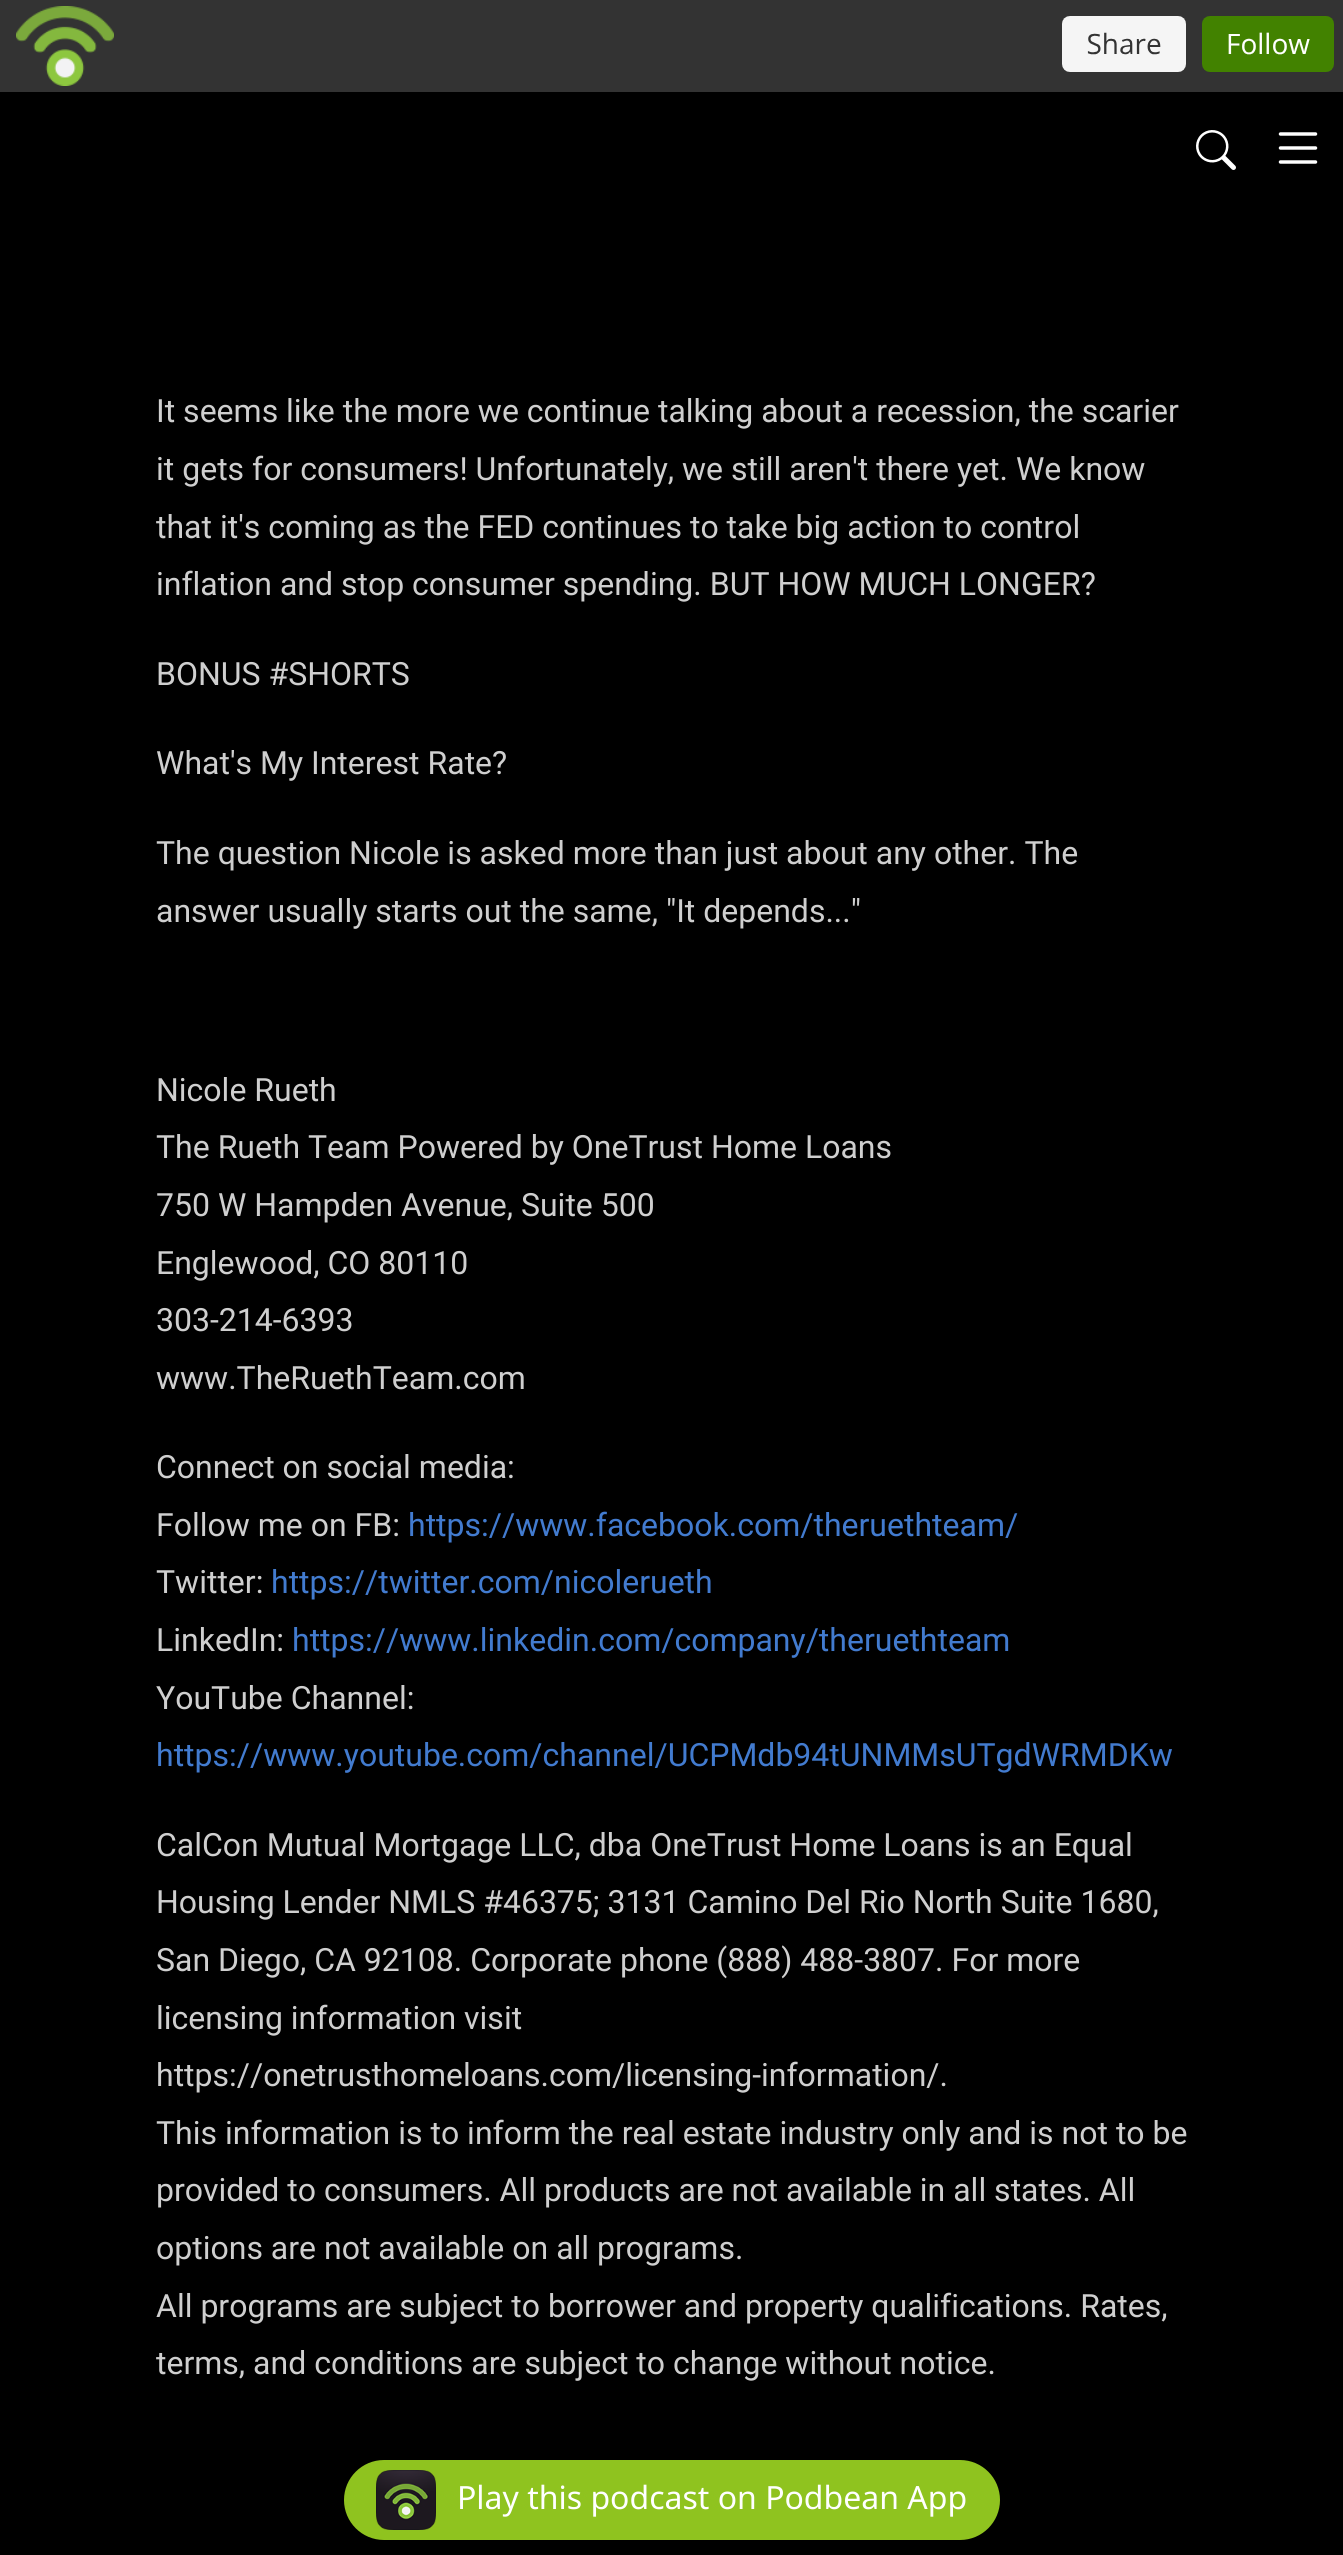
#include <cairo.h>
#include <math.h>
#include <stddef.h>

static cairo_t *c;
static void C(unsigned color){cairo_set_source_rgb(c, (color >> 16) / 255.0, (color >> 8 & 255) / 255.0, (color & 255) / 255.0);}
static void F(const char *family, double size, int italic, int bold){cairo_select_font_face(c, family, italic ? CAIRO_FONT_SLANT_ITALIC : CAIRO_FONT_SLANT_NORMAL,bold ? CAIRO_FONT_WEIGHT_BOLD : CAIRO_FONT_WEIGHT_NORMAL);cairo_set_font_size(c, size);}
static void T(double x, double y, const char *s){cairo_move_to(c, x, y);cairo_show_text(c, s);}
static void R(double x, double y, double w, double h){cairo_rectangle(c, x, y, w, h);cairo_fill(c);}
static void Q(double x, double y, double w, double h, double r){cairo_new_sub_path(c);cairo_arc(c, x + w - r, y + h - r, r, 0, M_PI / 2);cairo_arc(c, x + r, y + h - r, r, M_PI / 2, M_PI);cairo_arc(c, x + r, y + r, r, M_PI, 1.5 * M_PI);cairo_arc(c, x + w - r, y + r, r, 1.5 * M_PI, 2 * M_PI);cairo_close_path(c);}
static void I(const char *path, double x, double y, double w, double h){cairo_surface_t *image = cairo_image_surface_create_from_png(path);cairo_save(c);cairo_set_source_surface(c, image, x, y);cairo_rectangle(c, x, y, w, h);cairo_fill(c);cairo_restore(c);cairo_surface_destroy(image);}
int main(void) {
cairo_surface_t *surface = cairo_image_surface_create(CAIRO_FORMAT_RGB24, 1343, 2555);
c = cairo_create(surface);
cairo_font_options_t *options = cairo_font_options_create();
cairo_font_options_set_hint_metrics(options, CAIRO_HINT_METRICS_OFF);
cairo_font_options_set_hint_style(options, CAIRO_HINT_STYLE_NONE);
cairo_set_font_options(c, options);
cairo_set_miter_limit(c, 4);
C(0x000000);
cairo_paint(c);
C(0x333333);
R(0,0,1343,92);
I("1.png",16,6,1318,80);
I("2.png",1196,130,40,40);
I("3.png",1278,132,40,32);
F("Roboto",32,0,0);
C(0xcfcfcf);
T(156,422,"It seems like the more we continue talking about a recession, the scarier");
T(156,480,"it gets for consumers! Unfortunately, we still aren't there yet. We know");
T(156,538,"that it's coming as the FED continues to take big action to control");
T(156,595,"inflation and stop consumer spending. BUT HOW MUCH LONGER?");
T(156,685,"BONUS #SHORTS");
T(156,774,"What's My Interest Rate?");
T(156,864,"The question Nicole is asked more than just about any other. The");
T(156,922,"answer usually starts out the same, \"It depends...\"");
T(156,1101,"Nicole Rueth");
T(156,1158,"The Rueth Team Powered by OneTrust Home Loans");
T(156,1216,"750 W Hampden Avenue, Suite 500");
T(156,1274,"Englewood, CO 80110");
T(156,1331,"303-214-6393");
T(156,1389,"www.TheRuethTeam.com");
T(156,1478,"Connect on social media:");
T(156,1536,"Follow me on FB:");
C(0x427bcf);
T(408,1536,"https://www.facebook.com/theruethteam/");
C(0xcfcfcf);
T(156,1593,"Twitter:");
C(0x427bcf);
T(271,1593,"https://twitter.com/nicolerueth");
C(0xcfcfcf);
T(156,1651,"LinkedIn:");
C(0x427bcf);
T(292,1651,"https://www.linkedin.com/company/theruethteam");
C(0xcfcfcf);
T(156,1709,"YouTube Channel:");
C(0x427bcf);
T(156,1766,"https://www.youtube.com/channel/UCPMdb94tUNMMsUTgdWRMDKw");
C(0xcfcfcf);
T(156,1856,"CalCon Mutual Mortgage LLC, dba OneTrust Home Loans is an Equal");
T(156,1913,"Housing Lender NMLS #46375; 3131 Camino Del Rio North Suite 1680,");
T(156,1971,"San Diego, CA 92108. Corporate phone (888) 488-3807. For more");
T(156,2029,"licensing information visit");
T(156,2086,"https://onetrusthomeloans.com/licensing-information/.");
T(156,2144,"This information is to inform the real estate industry only and is not to be");
T(156,2201,"provided to consumers. All products are not available in all states. All");
T(156,2259,"options are not available on all programs.");
T(156,2317,"All programs are subject to borrower and property qualifications. Rates,");
T(156,2374,"terms, and conditions are subject to change without notice.");
C(0x8fc31f);
Q(344,2460,656,80,40);
cairo_fill(c);
I("4.png",376,2470,60,60);
F("Noto Sans",32,0,0);
C(0xffffff);
T(457,2509,"Play this podcast on Podbean App");
cairo_surface_write_to_png(surface, "o.png");
cairo_font_options_destroy(options);
cairo_destroy(c);
cairo_surface_destroy(surface);
return 0;
}
